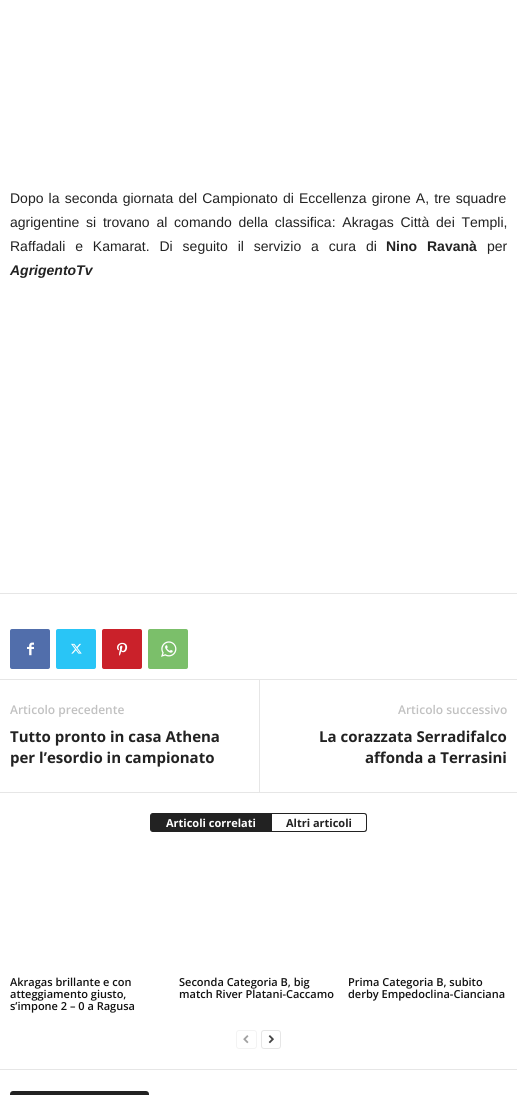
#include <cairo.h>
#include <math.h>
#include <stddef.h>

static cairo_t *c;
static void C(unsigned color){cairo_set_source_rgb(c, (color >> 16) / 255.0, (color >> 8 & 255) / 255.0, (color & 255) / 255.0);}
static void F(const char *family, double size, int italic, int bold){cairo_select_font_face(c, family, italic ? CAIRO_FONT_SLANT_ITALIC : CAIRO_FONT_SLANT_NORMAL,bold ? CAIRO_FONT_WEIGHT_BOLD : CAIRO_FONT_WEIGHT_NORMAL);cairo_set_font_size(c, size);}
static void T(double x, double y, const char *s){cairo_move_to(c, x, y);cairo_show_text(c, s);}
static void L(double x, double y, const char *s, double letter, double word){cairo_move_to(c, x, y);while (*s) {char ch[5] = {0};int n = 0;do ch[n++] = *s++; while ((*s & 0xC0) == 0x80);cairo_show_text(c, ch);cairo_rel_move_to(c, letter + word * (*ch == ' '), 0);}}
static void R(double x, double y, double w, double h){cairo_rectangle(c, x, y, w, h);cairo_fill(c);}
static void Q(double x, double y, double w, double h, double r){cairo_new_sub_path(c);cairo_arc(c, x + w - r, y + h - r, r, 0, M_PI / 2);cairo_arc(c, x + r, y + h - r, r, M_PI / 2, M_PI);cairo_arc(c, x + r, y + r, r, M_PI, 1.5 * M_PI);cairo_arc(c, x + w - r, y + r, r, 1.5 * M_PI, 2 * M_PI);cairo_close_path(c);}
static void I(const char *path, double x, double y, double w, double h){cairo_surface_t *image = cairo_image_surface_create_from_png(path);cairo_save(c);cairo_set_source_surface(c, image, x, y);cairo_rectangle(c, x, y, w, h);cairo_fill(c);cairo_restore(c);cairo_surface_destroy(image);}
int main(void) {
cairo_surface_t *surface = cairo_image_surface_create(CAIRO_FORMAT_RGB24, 517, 1095);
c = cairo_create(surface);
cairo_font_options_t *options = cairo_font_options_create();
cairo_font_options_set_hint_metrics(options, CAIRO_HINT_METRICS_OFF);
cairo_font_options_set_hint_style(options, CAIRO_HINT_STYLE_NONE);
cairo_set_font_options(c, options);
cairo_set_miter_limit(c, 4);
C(0xffffff);
cairo_paint(c);
F("Liberation Sans",14,0,0);
C(0x222222);
L(10,203,"Dopo la seconda giornata del Campionato di Eccellenza girone A, tre squadre",0,1.25);
L(10,227,"agrigentine si trovano al comando della classifica: Akragas Città dei Templi,",0,2.9);
L(10,251,"Raffadali e Kamarat. Di seguito il servizio a cura di",0,6);
F("Liberation Sans",14,0,1);
L(386,251,"Nino Ravanà",0,6);
F("Liberation Sans",14,0,0);
T(487,251,"per");
F("Liberation Sans",14,1,1);
T(10,275,"AgrigentoTv");
C(0xe6e6e6);
R(0,593,517,1);
C(0x516eab);
Q(10,629,40,40,2);
cairo_fill(c);
I("1.png",27,642,7,14);
C(0x29c5f6);
Q(56,629,40,40,2);
cairo_fill(c);
I("2.png",71,643,11,11);
C(0xca212a);
Q(102,629,40,40,2);
cairo_fill(c);
I("3.png",117,642,11,14);
C(0x7bbf6a);
Q(148,629,40,40,2);
cairo_fill(c);
I("4.png",161,641,16,16);
C(0xe6e6e6);
R(0,679,517,1);
F("Open Sans SemiBold",12,0,0);
C(0xc1c1c1);
T(10,714,"Articolo precedente");
F("Open Sans",15,0,1);
C(0x222222);
T(10,742,"Tutto pronto in casa Athena");
T(10,763,"per l’esordio in campionato");
C(0xe6e6e6);
R(259,680,1,112);
F("Open Sans SemiBold",12,0,0);
C(0xc1c1c1);
T(398,714,"Articolo successivo");
F("Open Sans",15,0,1);
C(0x222222);
T(319,742,"La corazzata Serradifalco");
T(365,763,"affonda a Terrasini");
C(0xe6e6e6);
R(0,792,517,1);
C(0x222222);
cairo_new_path(c);
cairo_move_to(c,153,813.5);
cairo_line_to(c,271.5,813.5);
cairo_line_to(c,271.5,831.5);
cairo_line_to(c,153,831.5);
cairo_curve_to(c,151.5,831.5,150.5,830.5,150.5,829);
cairo_line_to(c,150.5,816);
cairo_curve_to(c,150.5,814.5,151.5,813.5,153,813.5);
cairo_close_path(c);
cairo_fill_preserve(c);
cairo_set_line_width(c,1);
cairo_stroke(c);
F("Open Sans",11,0,1);
C(0xffffff);
T(166,827,"Articoli correlati");
C(0x222222);
cairo_set_fill_rule(c,CAIRO_FILL_RULE_EVEN_ODD);
cairo_new_path(c);
cairo_move_to(c,272,813);
cairo_line_to(c,364,813);
cairo_curve_to(c,366,813,367,814,367,816);
cairo_line_to(c,367,829);
cairo_curve_to(c,367,831,366,832,364,832);
cairo_line_to(c,272,832);
cairo_close_path(c);
cairo_move_to(c,272,814);
cairo_line_to(c,364,814);
cairo_curve_to(c,365,814,366,815,366,816);
cairo_line_to(c,366,829);
cairo_curve_to(c,366,830,365,831,364,831);
cairo_line_to(c,272,831);
cairo_close_path(c);
cairo_fill(c);
T(286,827,"Altri articoli");
F("Open Sans SemiBold",11,0,0);
C(0x111111);
T(10,986,"Akragas brillante e con");
T(10,998,"atteggiamento giusto,");
T(10,1010,"s’impone 2 – 0 a Ragusa");
T(179,986,"Seconda Categoria B, big");
T(179,998,"match River Platani-Caccamo");
T(348,986,"Prima Categoria B, subito");
T(348,998,"derby Empedoclina-Cianciana");
Q(236.5,1030.5,20,18,2.5);
C(0xf3f3f3);
cairo_stroke(c);
I("5.png",243,1035,6,9);
Q(261.5,1030.5,19,18,2.5);
C(0xe6e6e6);
cairo_stroke(c);
I("6.png",268,1035,6,9);
R(0,1069,517,1);
C(0x222222);
Q(10,1091,139,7,3);
cairo_fill(c);
cairo_surface_write_to_png(surface, "o.png");
cairo_font_options_destroy(options);
cairo_destroy(c);
cairo_surface_destroy(surface);
return 0;
}
